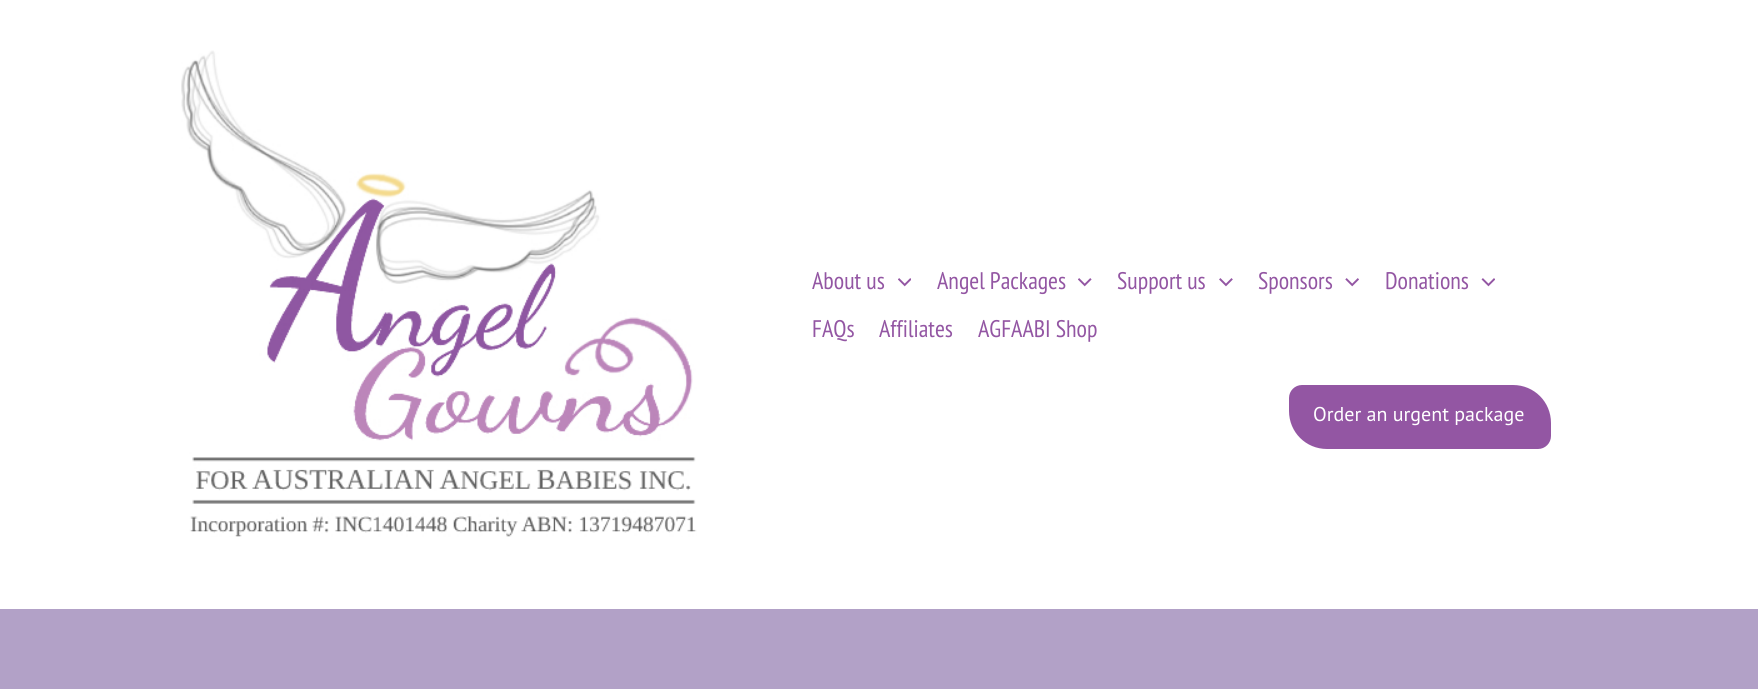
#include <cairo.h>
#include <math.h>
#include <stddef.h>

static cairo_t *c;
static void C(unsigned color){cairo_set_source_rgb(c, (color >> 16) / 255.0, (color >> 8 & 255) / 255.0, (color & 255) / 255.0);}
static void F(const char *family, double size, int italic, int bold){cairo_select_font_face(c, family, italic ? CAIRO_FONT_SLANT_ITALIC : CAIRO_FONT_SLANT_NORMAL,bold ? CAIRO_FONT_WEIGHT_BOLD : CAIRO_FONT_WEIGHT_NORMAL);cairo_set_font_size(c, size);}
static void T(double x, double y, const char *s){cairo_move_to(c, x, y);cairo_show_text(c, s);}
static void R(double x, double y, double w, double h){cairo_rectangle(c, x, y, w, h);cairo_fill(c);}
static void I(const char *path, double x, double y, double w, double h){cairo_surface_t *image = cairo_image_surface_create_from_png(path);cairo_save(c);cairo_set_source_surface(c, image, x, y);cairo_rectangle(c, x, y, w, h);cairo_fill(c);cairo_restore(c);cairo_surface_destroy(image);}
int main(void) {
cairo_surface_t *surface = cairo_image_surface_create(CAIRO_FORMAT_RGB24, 1758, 689);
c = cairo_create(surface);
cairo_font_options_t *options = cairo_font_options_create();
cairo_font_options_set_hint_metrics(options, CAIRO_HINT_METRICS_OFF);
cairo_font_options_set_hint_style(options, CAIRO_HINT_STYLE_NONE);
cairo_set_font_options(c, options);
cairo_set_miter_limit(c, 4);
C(0xb2a1c7);
cairo_paint(c);
C(0xffffff);
R(0,0,1758,609);
I("1.png",181,50,516,487);
F("PT Sans Narrow",24,0,0);
C(0x9356a3);
T(812,289,"About us");
I("2.png",898,278,13,9);
T(937,289,"Angel Packages");
I("3.png",1078,278,14,9);
T(1117,289,"Support us");
I("4.png",1219,278,14,9);
T(1258,289,"Sponsors");
I("5.png",1345,278,14,9);
T(1385,289,"Donations");
I("6.png",1481,278,14,9);
T(812,337,"FAQs");
T(879,337,"Affiliates");
T(978,337,"AGFAABI Shop");
cairo_new_path(c);
cairo_move_to(c,1302,388);
cairo_line_to(c,1513,388);
cairo_curve_to(c,1532.5,388,1548,403.5,1548,423);
cairo_line_to(c,1548,436);
cairo_curve_to(c,1548,441.5,1543.5,446,1538,446);
cairo_line_to(c,1327,446);
cairo_curve_to(c,1307.5,446,1292,430.5,1292,411);
cairo_line_to(c,1292,398);
cairo_curve_to(c,1292,392.5,1296.5,388,1302,388);
cairo_close_path(c);
cairo_fill_preserve(c);
cairo_set_line_width(c,6);
cairo_stroke(c);
F("PT Sans",20,0,0);
C(0xffffff);
T(1313,421,"Order an urgent package");
cairo_surface_write_to_png(surface, "o.png");
cairo_font_options_destroy(options);
cairo_destroy(c);
cairo_surface_destroy(surface);
return 0;
}
